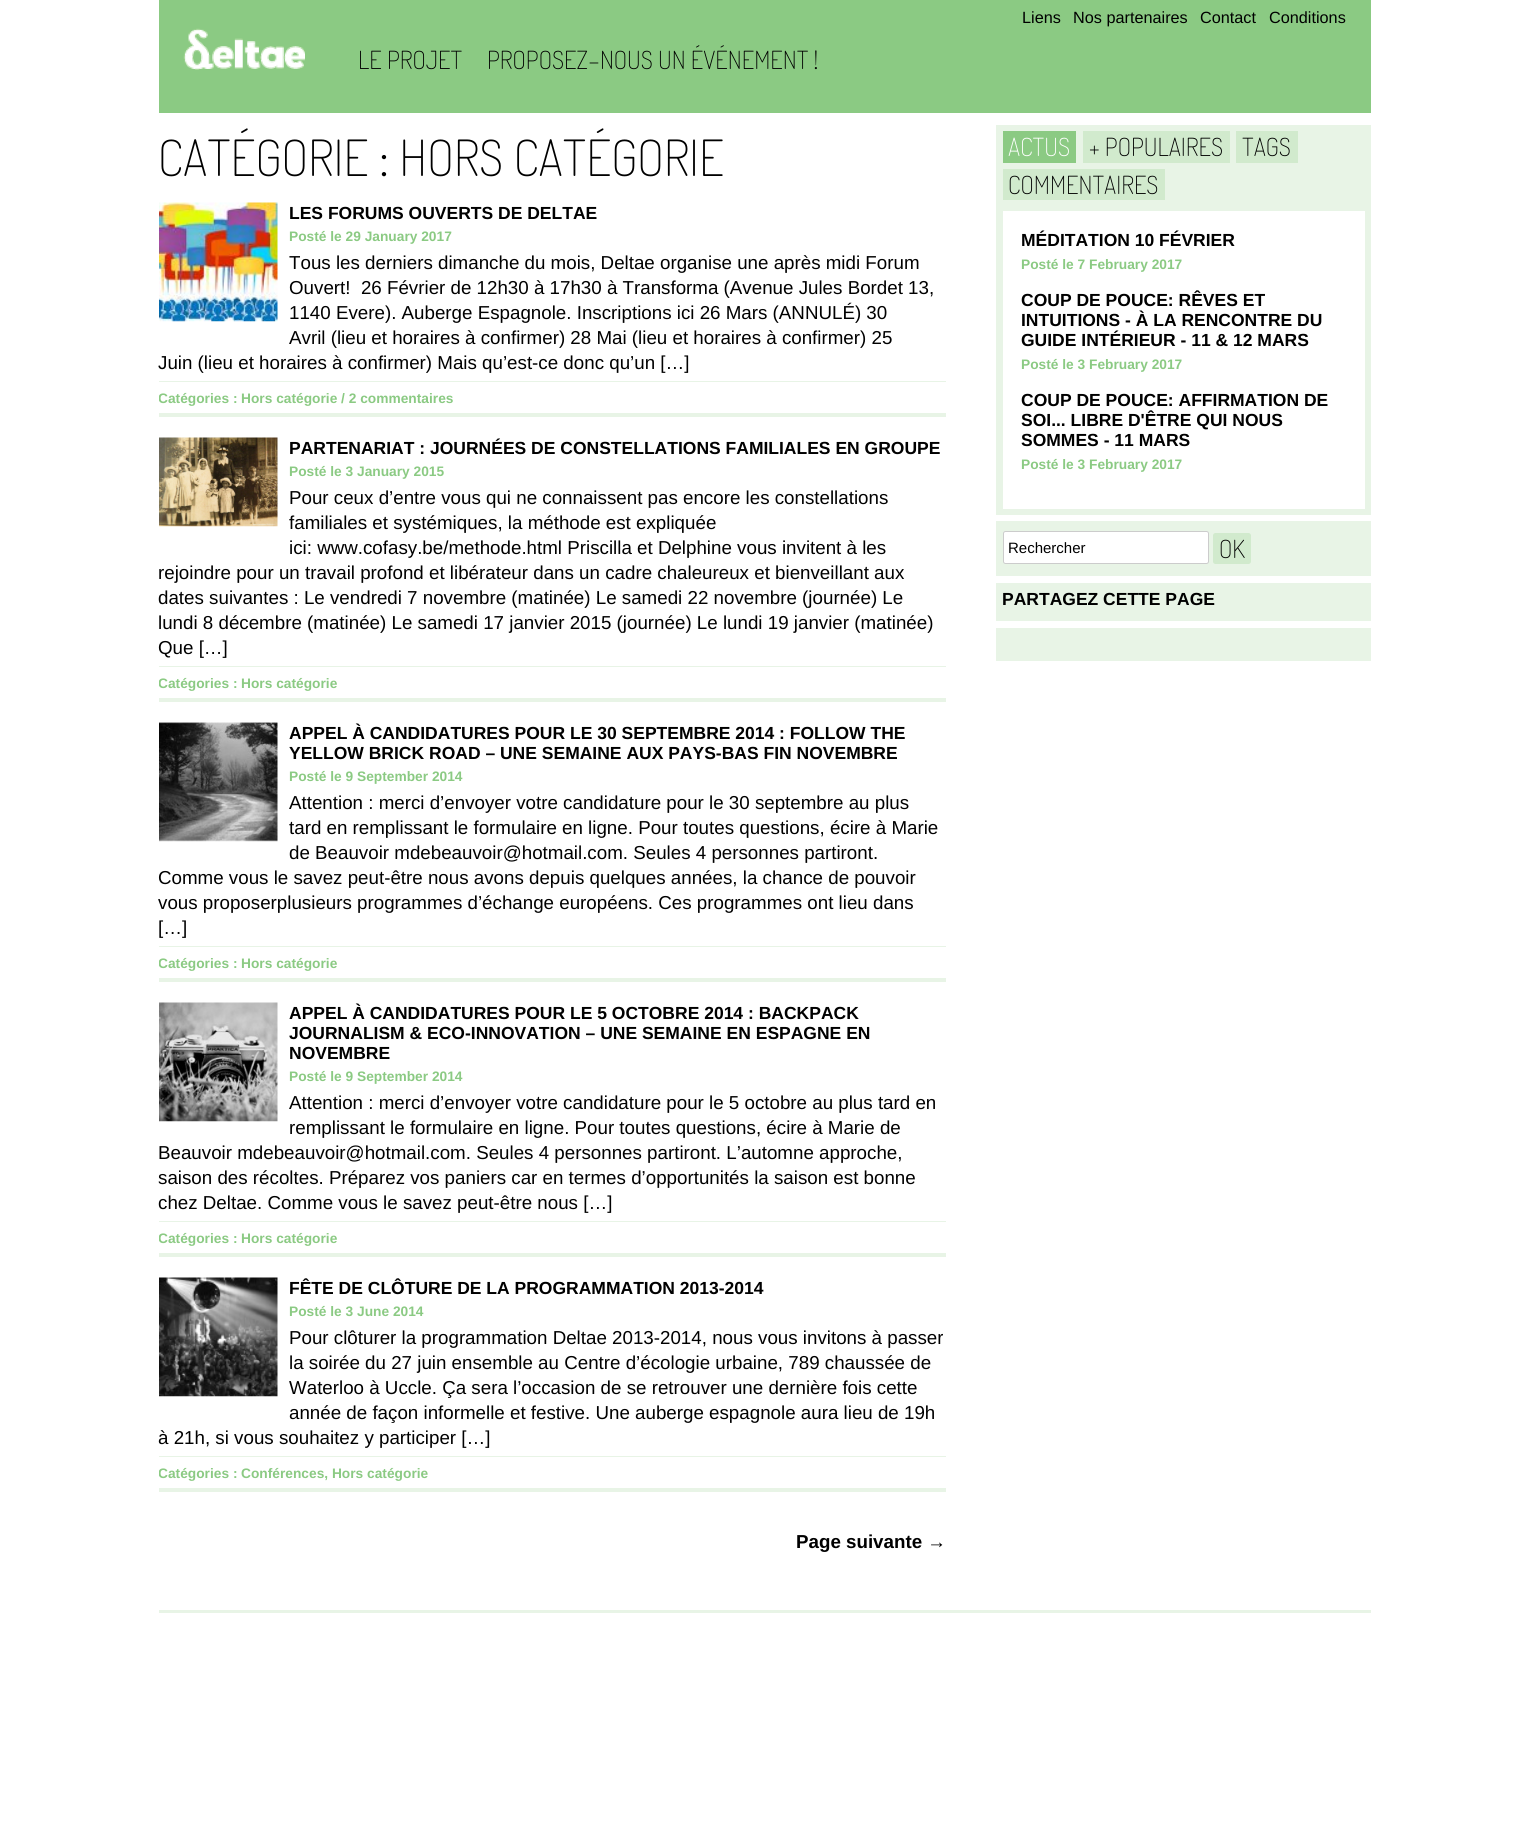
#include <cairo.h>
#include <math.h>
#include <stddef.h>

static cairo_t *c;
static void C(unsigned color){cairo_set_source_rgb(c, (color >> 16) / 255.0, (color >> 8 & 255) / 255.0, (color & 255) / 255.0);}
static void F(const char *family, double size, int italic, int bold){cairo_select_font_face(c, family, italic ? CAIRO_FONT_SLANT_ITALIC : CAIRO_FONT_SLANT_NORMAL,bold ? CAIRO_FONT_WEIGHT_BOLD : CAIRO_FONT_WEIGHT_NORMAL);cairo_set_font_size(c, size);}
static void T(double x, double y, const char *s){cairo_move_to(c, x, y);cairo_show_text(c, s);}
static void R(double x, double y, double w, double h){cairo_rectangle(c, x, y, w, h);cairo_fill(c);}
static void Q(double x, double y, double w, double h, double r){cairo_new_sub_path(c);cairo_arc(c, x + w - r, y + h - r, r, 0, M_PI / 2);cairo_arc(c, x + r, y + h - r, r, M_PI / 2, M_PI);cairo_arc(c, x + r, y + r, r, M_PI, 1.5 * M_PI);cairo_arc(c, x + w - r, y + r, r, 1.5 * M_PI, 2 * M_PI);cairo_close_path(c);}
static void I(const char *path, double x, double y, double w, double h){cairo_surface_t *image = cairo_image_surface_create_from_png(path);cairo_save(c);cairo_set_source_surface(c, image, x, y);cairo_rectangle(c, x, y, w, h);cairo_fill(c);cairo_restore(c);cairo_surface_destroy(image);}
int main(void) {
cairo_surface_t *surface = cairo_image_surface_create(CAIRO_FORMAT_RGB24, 1528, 1835);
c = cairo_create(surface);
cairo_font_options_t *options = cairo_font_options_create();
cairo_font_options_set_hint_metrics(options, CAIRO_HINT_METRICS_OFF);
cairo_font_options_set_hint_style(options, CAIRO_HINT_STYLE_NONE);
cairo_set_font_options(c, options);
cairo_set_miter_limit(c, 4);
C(0xffffff);
cairo_paint(c);
C(0x8bca83);
R(159,0,1212,113);
F("Liberation Sans",16.25,0,0);
C(0x000000);
T(1022,23,"Liens");
T(1073,23,"Nos partenaires");
T(1200,23,"Contact");
T(1269,23,"Conditions");
I("1.png",183,28,122,42);
I("2.png",184,29,121,40);
F("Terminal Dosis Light",25,0,0);
T(358,69,"LE PROJET");
T(487,69,"PROPOSEZ-NOUS UN ÉVÉNEMENT !");
F("Terminal Dosis Light",50,0,0);
T(158,176,"CATÉGORIE : HORS CATÉGORIE");
I("3.png",159,202,119,120);
F("Liberation Sans",17.5,0,1);
T(289,219,"LES FORUMS OUVERTS DE DELTAE");
F("Liberation Sans",13.75,0,1);
C(0x8bca83);
T(289,241,"Posté le 29 January 2017");
F("Liberation Sans",18.75,0,0);
C(0x000000);
T(289,269,"Tous les derniers dimanche du mois, Deltae organise une après midi Forum");
T(289,294,"Ouvert!  26 Février de 12h30 à 17h30 à Transforma (Avenue Jules Bordet 13,");
T(289,319,"1140 Evere). Auberge Espagnole. Inscriptions ici 26 Mars (ANNULÉ) 30");
T(289,344,"Avril (lieu et horaires à confirmer) 28 Mai (lieu et horaires à confirmer) 25");
T(158,369,"Juin (lieu et horaires à confirmer) Mais qu’est-ce donc qu’un […]");
C(0xe8f4e6);
R(159,381,787,1);
R(159,413,787,4);
cairo_save(c);
cairo_rectangle(c,159,125,787,1460);
cairo_clip(c);
F("Liberation Sans",13.75,0,1);
C(0x8bca83);
T(158,403,"Catégories :");
cairo_restore(c);
F("Liberation Sans",13.75,0,1);
C(0x8bca83);
T(241,403,"Hors catégorie / 2 commentaires");
I("4.png",159,437,119,90);
F("Liberation Sans",17.5,0,1);
C(0x000000);
T(289,454,"PARTENARIAT : JOURNÉES DE CONSTELLATIONS FAMILIALES EN GROUPE");
F("Liberation Sans",13.75,0,1);
C(0x8bca83);
T(289,476,"Posté le 3 January 2015");
F("Liberation Sans",18.75,0,0);
C(0x000000);
T(289,504,"Pour ceux d’entre vous qui ne connaissent pas encore les constellations");
T(289,529,"familiales et systémiques, la méthode est expliquée");
T(289,554,"ici: www.cofasy.be/methode.html Priscilla et Delphine vous invitent à les");
T(158,579,"rejoindre pour un travail profond et libérateur dans un cadre chaleureux et bienveillant aux");
T(158,604,"dates suivantes : Le vendredi 7 novembre (matinée) Le samedi 22 novembre (journée) Le");
T(158,629,"lundi 8 décembre (matinée) Le samedi 17 janvier 2015 (journée) Le lundi 19 janvier (matinée)");
T(158,654,"Que […]");
C(0xe8f4e6);
R(159,666,787,1);
R(159,698,787,4);
cairo_save(c);
cairo_rectangle(c,159,125,787,1460);
cairo_clip(c);
F("Liberation Sans",13.75,0,1);
C(0x8bca83);
T(158,688,"Catégories :");
cairo_restore(c);
F("Liberation Sans",13.75,0,1);
C(0x8bca83);
T(241,688,"Hors catégorie");
I("5.png",159,722,119,120);
F("Liberation Sans",17.5,0,1);
C(0x000000);
T(289,739,"APPEL À CANDIDATURES POUR LE 30 SEPTEMBRE 2014 : FOLLOW THE");
T(289,759,"YELLOW BRICK ROAD – UNE SEMAINE AUX PAYS-BAS FIN NOVEMBRE");
F("Liberation Sans",13.75,0,1);
C(0x8bca83);
T(289,781,"Posté le 9 September 2014");
F("Liberation Sans",18.75,0,0);
C(0x000000);
T(289,809,"Attention : merci d’envoyer votre candidature pour le 30 septembre au plus");
T(289,834,"tard en remplissant le formulaire en ligne. Pour toutes questions, écire à Marie");
T(289,859,"de Beauvoir mdebeauvoir@hotmail.com. Seules 4 personnes partiront.");
T(158,884,"Comme vous le savez peut-être nous avons depuis quelques années, la chance de pouvoir");
T(158,909,"vous proposerplusieurs programmes d’échange européens. Ces programmes ont lieu dans");
T(158,934,"[…]");
C(0xe8f4e6);
R(159,946,787,1);
R(159,978,787,4);
cairo_save(c);
cairo_rectangle(c,159,125,787,1460);
cairo_clip(c);
F("Liberation Sans",13.75,0,1);
C(0x8bca83);
T(158,968,"Catégories :");
cairo_restore(c);
F("Liberation Sans",13.75,0,1);
C(0x8bca83);
T(241,968,"Hors catégorie");
I("6.png",159,1002,119,120);
F("Liberation Sans",17.5,0,1);
C(0x000000);
T(289,1019,"APPEL À CANDIDATURES POUR LE 5 OCTOBRE 2014 : BACKPACK");
T(289,1039,"JOURNALISM & ECO-INNOVATION – UNE SEMAINE EN ESPAGNE EN");
T(289,1059,"NOVEMBRE");
F("Liberation Sans",13.75,0,1);
C(0x8bca83);
T(289,1081,"Posté le 9 September 2014");
F("Liberation Sans",18.75,0,0);
C(0x000000);
T(289,1109,"Attention : merci d’envoyer votre candidature pour le 5 octobre au plus tard en");
T(289,1134,"remplissant le formulaire en ligne. Pour toutes questions, écire à Marie de");
T(158,1159,"Beauvoir mdebeauvoir@hotmail.com. Seules 4 personnes partiront. L’automne approche,");
T(158,1184,"saison des récoltes. Préparez vos paniers car en termes d’opportunités la saison est bonne");
T(158,1209,"chez Deltae. Comme vous le savez peut-être nous […]");
C(0xe8f4e6);
R(159,1221,787,1);
R(159,1253,787,4);
cairo_save(c);
cairo_rectangle(c,159,125,787,1460);
cairo_clip(c);
F("Liberation Sans",13.75,0,1);
C(0x8bca83);
T(158,1243,"Catégories :");
cairo_restore(c);
F("Liberation Sans",13.75,0,1);
C(0x8bca83);
T(241,1243,"Hors catégorie");
I("7.png",159,1277,119,120);
F("Liberation Sans",17.5,0,1);
C(0x000000);
T(289,1294,"FÊTE DE CLÔTURE DE LA PROGRAMMATION 2013-2014");
F("Liberation Sans",13.75,0,1);
C(0x8bca83);
T(289,1316,"Posté le 3 June 2014");
F("Liberation Sans",18.75,0,0);
C(0x000000);
T(289,1344,"Pour clôturer la programmation Deltae 2013-2014, nous vous invitons à passer");
T(289,1369,"la soirée du 27 juin ensemble au Centre d’écologie urbaine, 789 chaussée de");
T(289,1394,"Waterloo à Uccle. Ça sera l’occasion de se retrouver une dernière fois cette");
T(289,1419,"année de façon informelle et festive. Une auberge espagnole aura lieu de 19h");
T(158,1444,"à 21h, si vous souhaitez y participer […]");
C(0xe8f4e6);
R(159,1456,787,1);
R(159,1488,787,4);
cairo_save(c);
cairo_rectangle(c,159,125,787,1460);
cairo_clip(c);
F("Liberation Sans",13.75,0,1);
C(0x8bca83);
T(158,1478,"Catégories :");
cairo_restore(c);
F("Liberation Sans",13.75,0,1);
C(0x8bca83);
T(241,1478,"Conférences, Hors catégorie");
F("Liberation Sans",18.75,0,1);
C(0x000000);
T(796,1548,"Page suivante →");
C(0xe8f4e6);
R(996,125,375,390);
C(0x8bca83);
R(1003,131,73,32);
F("Terminal Dosis Light",25,0,0);
C(0xffffff);
T(1008,156,"ACTUS");
C(0xd1eacd);
R(1083,131,147,32);
C(0x000000);
T(1089,156,"+ POPULAIRES");
C(0xd1eacd);
R(1236,131,62,32);
C(0x000000);
T(1242,156,"TAGS");
C(0xd1eacd);
R(1003,169,162,31);
C(0x000000);
T(1008,194,"COMMENTAIRES");
C(0xffffff);
R(1003,211,362,298);
F("Liberation Sans",17.5,0,1);
C(0x000000);
T(1021,246,"MÉDITATION 10 FÉVRIER");
F("Liberation Sans",13.75,0,1);
C(0x8bca83);
T(1021,269,"Posté le 7 February 2017");
F("Liberation Sans",17.5,0,1);
C(0x000000);
T(1021,306,"COUP DE POUCE: RÊVES ET");
T(1021,326,"INTUITIONS - À LA RENCONTRE DU");
T(1021,346,"GUIDE INTÉRIEUR - 11 & 12 MARS");
F("Liberation Sans",13.75,0,1);
C(0x8bca83);
T(1021,369,"Posté le 3 February 2017");
F("Liberation Sans",17.5,0,1);
C(0x000000);
T(1021,406,"COUP DE POUCE: AFFIRMATION DE");
T(1021,426,"SOI... LIBRE D'ÊTRE QUI NOUS");
T(1021,446,"SOMMES - 11 MARS");
F("Liberation Sans",13.75,0,1);
C(0x8bca83);
T(1021,469,"Posté le 3 February 2017");
C(0xe8f4e6);
R(996,521,375,55);
C(0xffffff);
Q(1003.5,531.5,205,32,2);
cairo_fill_preserve(c);
C(0xcccccc);
cairo_set_line_width(c,1);
cairo_stroke(c);
F("Liberation Sans",15,0,0);
C(0x000000);
T(1008,553,"Rechercher");
C(0xd1eacd);
Q(1213,533,38,31,2.5);
cairo_fill(c);
F("Terminal Dosis Light",25,0,0);
C(0x000000);
T(1219,558,"OK");
C(0xe8f4e6);
R(996,583,375,38);
F("Liberation Sans",17.5,0,1);
C(0x000000);
T(1002,605,"PARTAGEZ CETTE PAGE");
C(0xe8f4e6);
R(996,628,375,33);
R(159,1610,1212,3);
cairo_surface_write_to_png(surface, "o.png");
cairo_font_options_destroy(options);
cairo_destroy(c);
cairo_surface_destroy(surface);
return 0;
}
